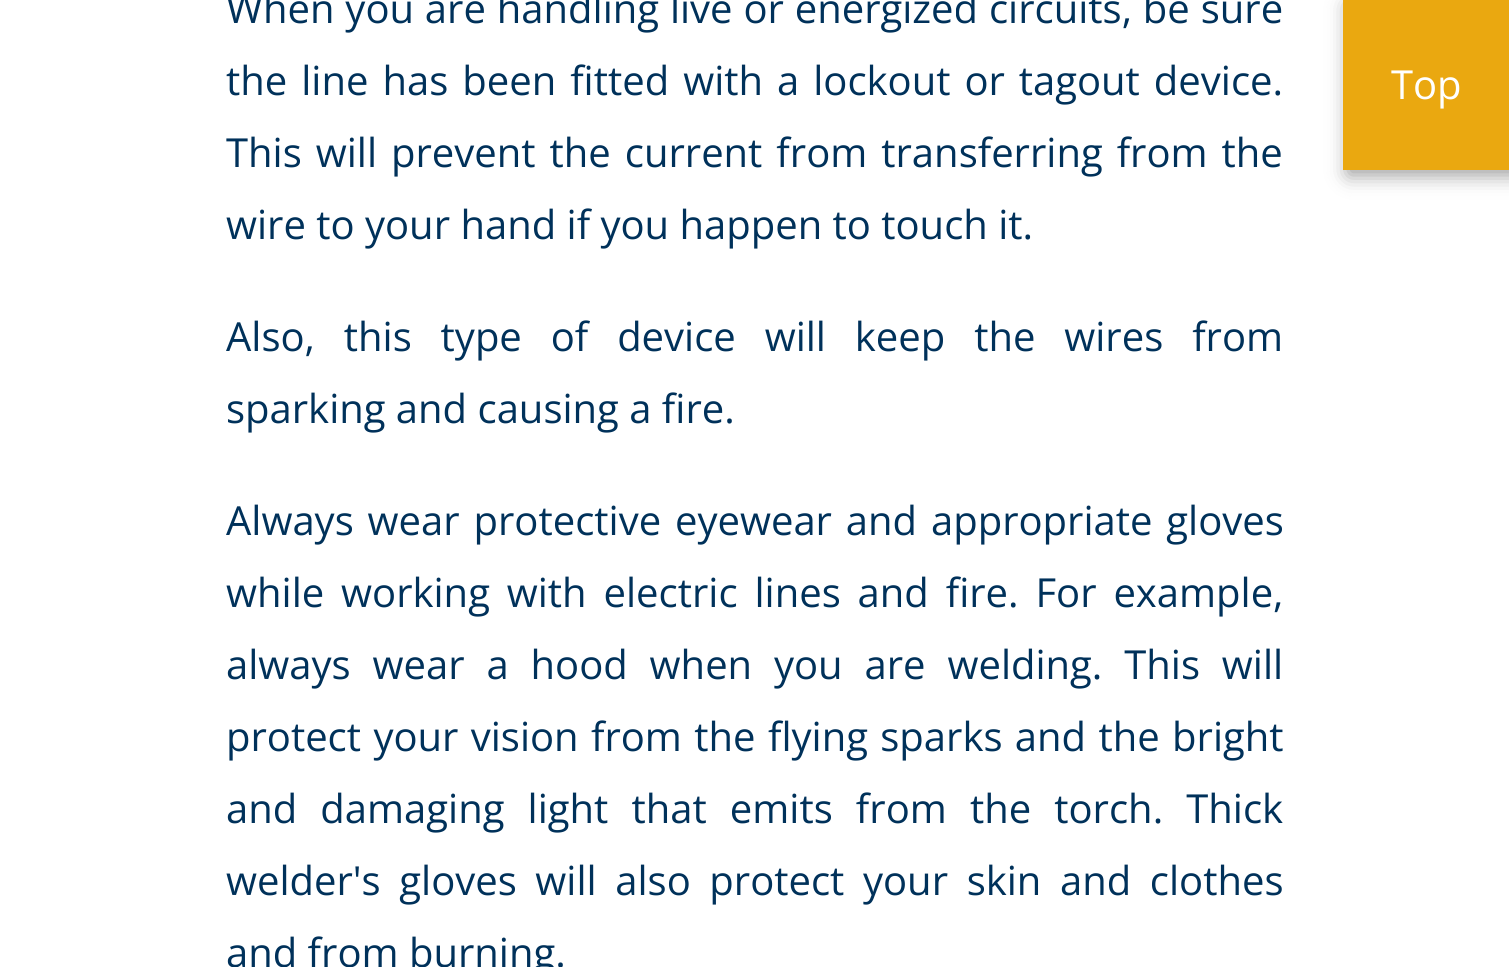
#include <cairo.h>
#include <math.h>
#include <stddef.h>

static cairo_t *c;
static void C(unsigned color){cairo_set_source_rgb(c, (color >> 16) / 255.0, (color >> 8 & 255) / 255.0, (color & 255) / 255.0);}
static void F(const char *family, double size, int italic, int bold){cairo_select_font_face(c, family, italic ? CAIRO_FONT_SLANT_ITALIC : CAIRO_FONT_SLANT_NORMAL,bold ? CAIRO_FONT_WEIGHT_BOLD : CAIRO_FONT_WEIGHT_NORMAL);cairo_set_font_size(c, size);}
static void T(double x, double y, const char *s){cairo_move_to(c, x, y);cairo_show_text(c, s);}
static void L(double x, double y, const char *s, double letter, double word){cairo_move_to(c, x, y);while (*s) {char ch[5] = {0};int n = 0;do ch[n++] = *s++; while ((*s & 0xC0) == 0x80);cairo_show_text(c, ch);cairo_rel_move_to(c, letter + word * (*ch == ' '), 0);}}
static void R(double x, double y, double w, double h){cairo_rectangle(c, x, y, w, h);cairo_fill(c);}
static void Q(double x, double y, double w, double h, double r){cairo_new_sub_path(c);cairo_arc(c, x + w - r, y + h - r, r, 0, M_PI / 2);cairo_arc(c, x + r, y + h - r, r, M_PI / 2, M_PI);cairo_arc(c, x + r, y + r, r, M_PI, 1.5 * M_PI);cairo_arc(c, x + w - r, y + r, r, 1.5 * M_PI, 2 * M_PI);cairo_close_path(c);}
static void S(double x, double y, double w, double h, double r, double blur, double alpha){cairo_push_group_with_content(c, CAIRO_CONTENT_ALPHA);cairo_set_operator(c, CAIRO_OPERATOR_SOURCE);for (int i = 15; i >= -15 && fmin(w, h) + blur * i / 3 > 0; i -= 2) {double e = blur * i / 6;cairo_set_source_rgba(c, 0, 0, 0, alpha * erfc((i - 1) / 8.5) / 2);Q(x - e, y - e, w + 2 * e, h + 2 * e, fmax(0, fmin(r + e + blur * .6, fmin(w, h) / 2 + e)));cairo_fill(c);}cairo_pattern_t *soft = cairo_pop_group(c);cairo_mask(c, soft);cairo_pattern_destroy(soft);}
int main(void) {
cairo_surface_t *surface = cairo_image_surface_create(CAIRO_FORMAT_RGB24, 1509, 967);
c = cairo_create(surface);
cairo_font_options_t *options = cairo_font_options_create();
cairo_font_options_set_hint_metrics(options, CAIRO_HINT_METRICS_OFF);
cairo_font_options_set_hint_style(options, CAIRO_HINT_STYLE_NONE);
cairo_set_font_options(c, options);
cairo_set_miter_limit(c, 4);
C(0xffffff);
cairo_paint(c);
F("Open Sans",40,0,0);
C(0x00315a);
L(226,23,"When you are handling live or energized circuits, be sure",0,.5);
L(226,95,"the line has been fitted with a lockout or tagout device.",0,3.6);
L(226,167,"This will prevent the current from transferring from the",0,3.6);
T(226,239,"wire to your hand if you happen to touch it.");
L(226,351,"Also, this type of device will keep the wires from",0,18.5);
T(226,423,"sparking and causing a fire.");
L(226,535,"Always wear protective eyewear and appropriate gloves",0,3.5);
L(226,607,"while working with electric lines and fire. For example,",0,6.5);
L(226,679,"always wear a hood when you are welding. This will",0,11.5);
L(226,751,"protect your vision from the flying sparks and the bright",0,2);
L(226,823,"and damaging light that emits from the torch. Thick",0,12.75);
L(226,895,"welder's gloves will also protect your skin and clothes",0,8.25);
T(226,967,"and from burning.");
C(0x000000);
S(1348,5,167,170,0,10,.4);
C(0xeaa810);
R(1343,0,166,170);
C(0xffffff);
T(1391,99,"Top");
cairo_surface_write_to_png(surface, "o.png");
cairo_font_options_destroy(options);
cairo_destroy(c);
cairo_surface_destroy(surface);
return 0;
}
